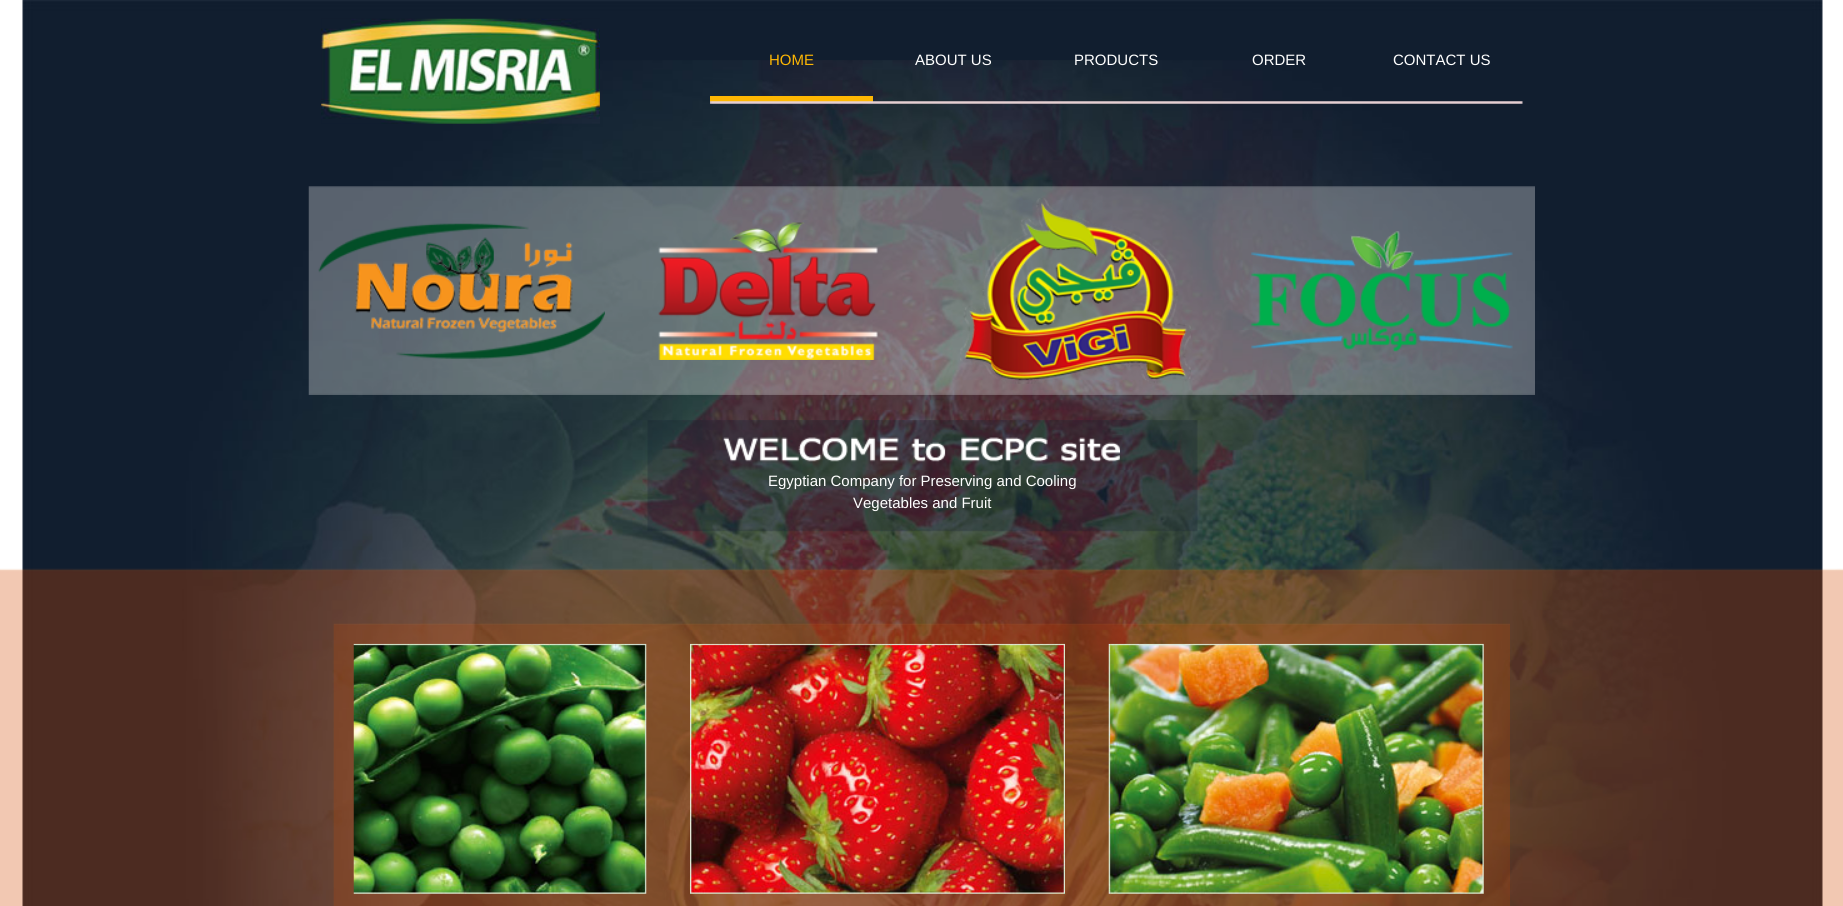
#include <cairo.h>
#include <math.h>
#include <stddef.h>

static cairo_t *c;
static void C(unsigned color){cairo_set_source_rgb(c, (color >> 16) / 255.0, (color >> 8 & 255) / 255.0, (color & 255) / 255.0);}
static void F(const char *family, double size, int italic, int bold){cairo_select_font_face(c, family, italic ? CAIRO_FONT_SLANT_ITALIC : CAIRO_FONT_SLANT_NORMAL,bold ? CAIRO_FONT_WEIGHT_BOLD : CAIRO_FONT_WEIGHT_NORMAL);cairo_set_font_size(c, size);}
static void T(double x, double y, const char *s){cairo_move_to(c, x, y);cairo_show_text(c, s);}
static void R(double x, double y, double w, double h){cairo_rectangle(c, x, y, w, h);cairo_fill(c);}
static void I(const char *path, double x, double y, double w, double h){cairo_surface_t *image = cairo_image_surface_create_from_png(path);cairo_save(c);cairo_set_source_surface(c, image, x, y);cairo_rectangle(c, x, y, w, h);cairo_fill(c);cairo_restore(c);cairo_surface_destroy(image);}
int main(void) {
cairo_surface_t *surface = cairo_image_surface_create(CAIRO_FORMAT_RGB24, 1843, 906);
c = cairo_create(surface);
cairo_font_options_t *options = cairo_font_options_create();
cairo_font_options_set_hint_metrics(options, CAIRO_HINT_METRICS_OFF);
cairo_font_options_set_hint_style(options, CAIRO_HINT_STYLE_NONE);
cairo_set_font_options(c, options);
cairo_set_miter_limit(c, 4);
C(0xffffff);
cairo_paint(c);
I("1.png",22,0,1801,906);
I("2.png",321,18,279,106);
C(0xfeb703);
R(710,96,163,6);
F("Liberation Sans",15,0,0);
T(769,65,"HOME");
C(0xffffff);
T(915,65,"ABOUT US");
T(1074,65,"PRODUCTS");
T(1252,65,"ORDER");
T(1393,65,"CONTACT US");
I("3.png",710,101,813,3);
I("4.png",308,186,1227,209);
I("5.png",318,223,287,136);
I("6.png",658,222,220,138);
I("7.png",960,198,231,186);
I("8.png",1251,231,262,121);
I("9.png",647,420,551,112);
I("10.png",723,437,397,25);
T(768,486,"Egyptian Company for Preserving and Cooling");
T(853,508,"Vegetables and Fruit");
I("11.png",0,568,1843,338);
I("12.png",333,623,1177,283);
I("13.png",353,643,294,251);
I("14.png",690,643,375,251);
I("15.png",1108,643,376,251);
cairo_surface_write_to_png(surface, "o.png");
cairo_font_options_destroy(options);
cairo_destroy(c);
cairo_surface_destroy(surface);
return 0;
}
